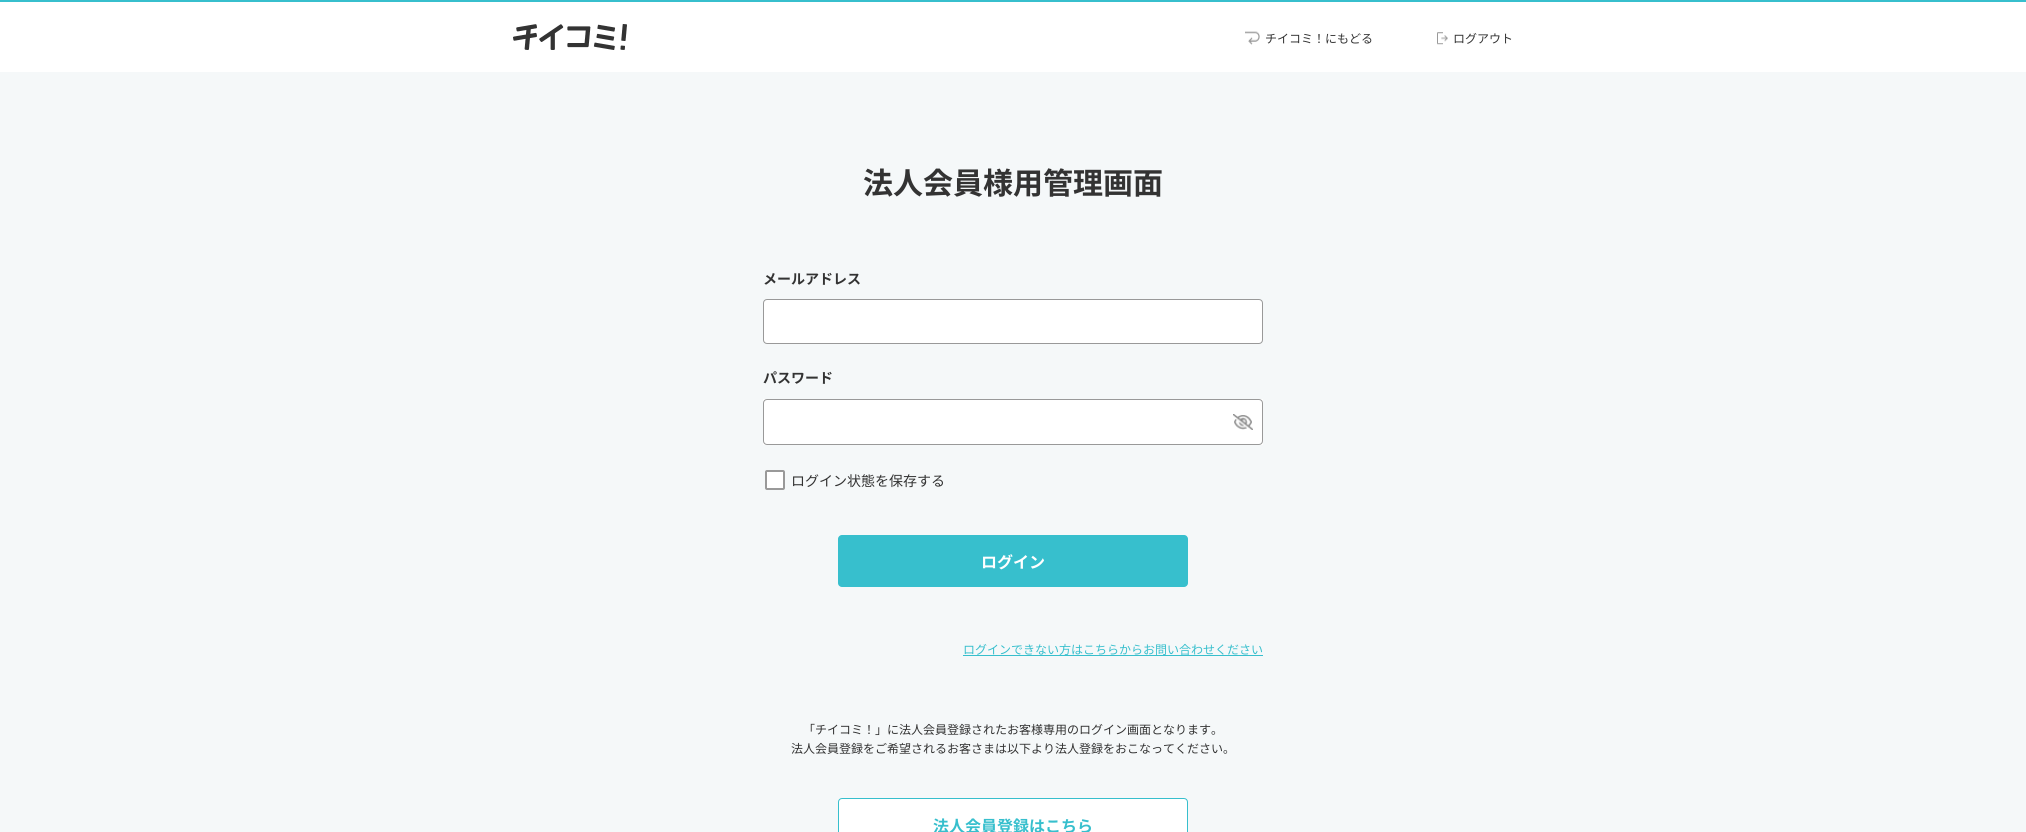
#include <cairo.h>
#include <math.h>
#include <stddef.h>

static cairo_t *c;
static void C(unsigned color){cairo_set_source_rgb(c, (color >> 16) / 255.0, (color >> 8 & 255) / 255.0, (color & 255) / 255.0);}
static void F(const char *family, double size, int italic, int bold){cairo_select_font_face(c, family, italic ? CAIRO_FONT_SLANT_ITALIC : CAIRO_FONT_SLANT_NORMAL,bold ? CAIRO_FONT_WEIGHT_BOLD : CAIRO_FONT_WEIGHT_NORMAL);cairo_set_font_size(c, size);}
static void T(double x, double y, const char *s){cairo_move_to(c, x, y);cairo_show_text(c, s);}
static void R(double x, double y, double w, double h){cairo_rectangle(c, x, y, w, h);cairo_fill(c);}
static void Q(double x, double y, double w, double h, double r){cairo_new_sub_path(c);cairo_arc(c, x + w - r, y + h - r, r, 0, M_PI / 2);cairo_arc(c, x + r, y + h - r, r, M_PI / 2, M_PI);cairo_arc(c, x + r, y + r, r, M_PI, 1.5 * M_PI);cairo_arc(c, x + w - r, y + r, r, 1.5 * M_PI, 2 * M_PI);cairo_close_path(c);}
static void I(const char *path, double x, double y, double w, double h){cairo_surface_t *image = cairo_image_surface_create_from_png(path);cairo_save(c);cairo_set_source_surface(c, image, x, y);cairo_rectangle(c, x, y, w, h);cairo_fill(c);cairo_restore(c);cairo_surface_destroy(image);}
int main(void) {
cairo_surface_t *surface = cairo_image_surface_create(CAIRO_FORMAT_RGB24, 2026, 832);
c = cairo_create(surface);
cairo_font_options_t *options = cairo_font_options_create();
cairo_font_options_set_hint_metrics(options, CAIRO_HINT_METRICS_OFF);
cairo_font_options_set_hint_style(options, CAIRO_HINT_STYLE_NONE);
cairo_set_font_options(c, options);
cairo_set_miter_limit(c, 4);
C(0xffffff);
cairo_paint(c);
C(0x37bfcd);
R(0,0,2026,2);
I("1.png",513,24,114,26);
I("2.png",1245,31,15,14);
F("Noto Sans JP",12,0,0);
C(0x333333);
T(1265,43,"チイコミ！にもどる");
I("3.png",1437,32,11,13);
T(1453,43,"ログアウト");
C(0xf5f8f9);
R(0,72,2026,760);
F("Noto Sans JP",30,0,1);
C(0x333333);
T(863,194,"法人会員様用管理画面");
F("Noto Sans JP",14,0,1);
T(763,284,"メールアドレス");
C(0xffffff);
Q(763.5,299.5,499,44,3.5);
cairo_fill_preserve(c);
C(0x999999);
cairo_set_line_width(c,1);
cairo_stroke(c);
C(0x333333);
T(763,383,"パスワード");
C(0xffffff);
R(763,399,500,46);
Q(763.5,399.5,499,45,3.5);
C(0x999999);
cairo_stroke(c);
I("4.png",1233,414,20,16);
C(0xffffff);
Q(766,471,18,18,1);
cairo_fill_preserve(c);
C(0x999999);
cairo_set_line_width(c,2);
cairo_stroke(c);
F("Noto Sans JP",14,0,0);
C(0x333333);
T(791,486,"ログイン状態を保存する");
C(0x37bfcd);
Q(838,535,350,52,4);
cairo_fill(c);
F("Noto Sans JP",16,0,1);
C(0xffffff);
T(981,568,"ログイン");
F("Noto Sans JP",12,0,0);
C(0x37bfcd);
T(963,654,"ログインできない方はこちらからお問い合わせください");
R(963,655,300,1);
C(0x333333);
T(803,734,"「チイコミ！」に法人会員登録されたお客様専用のログイン画面となります。");
T(791,753,"法人会員登録をご希望されるお客さまは以下より法人登録をおこなってください。");
C(0xffffff);
Q(838.5,798.5,349,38,3.5);
cairo_fill_preserve(c);
C(0x37bfcd);
cairo_set_line_width(c,1);
cairo_stroke(c);
F("Noto Sans JP",16,0,1);
T(933,832,"法人会員登録はこちら");
cairo_surface_write_to_png(surface, "o.png");
cairo_font_options_destroy(options);
cairo_destroy(c);
cairo_surface_destroy(surface);
return 0;
}
